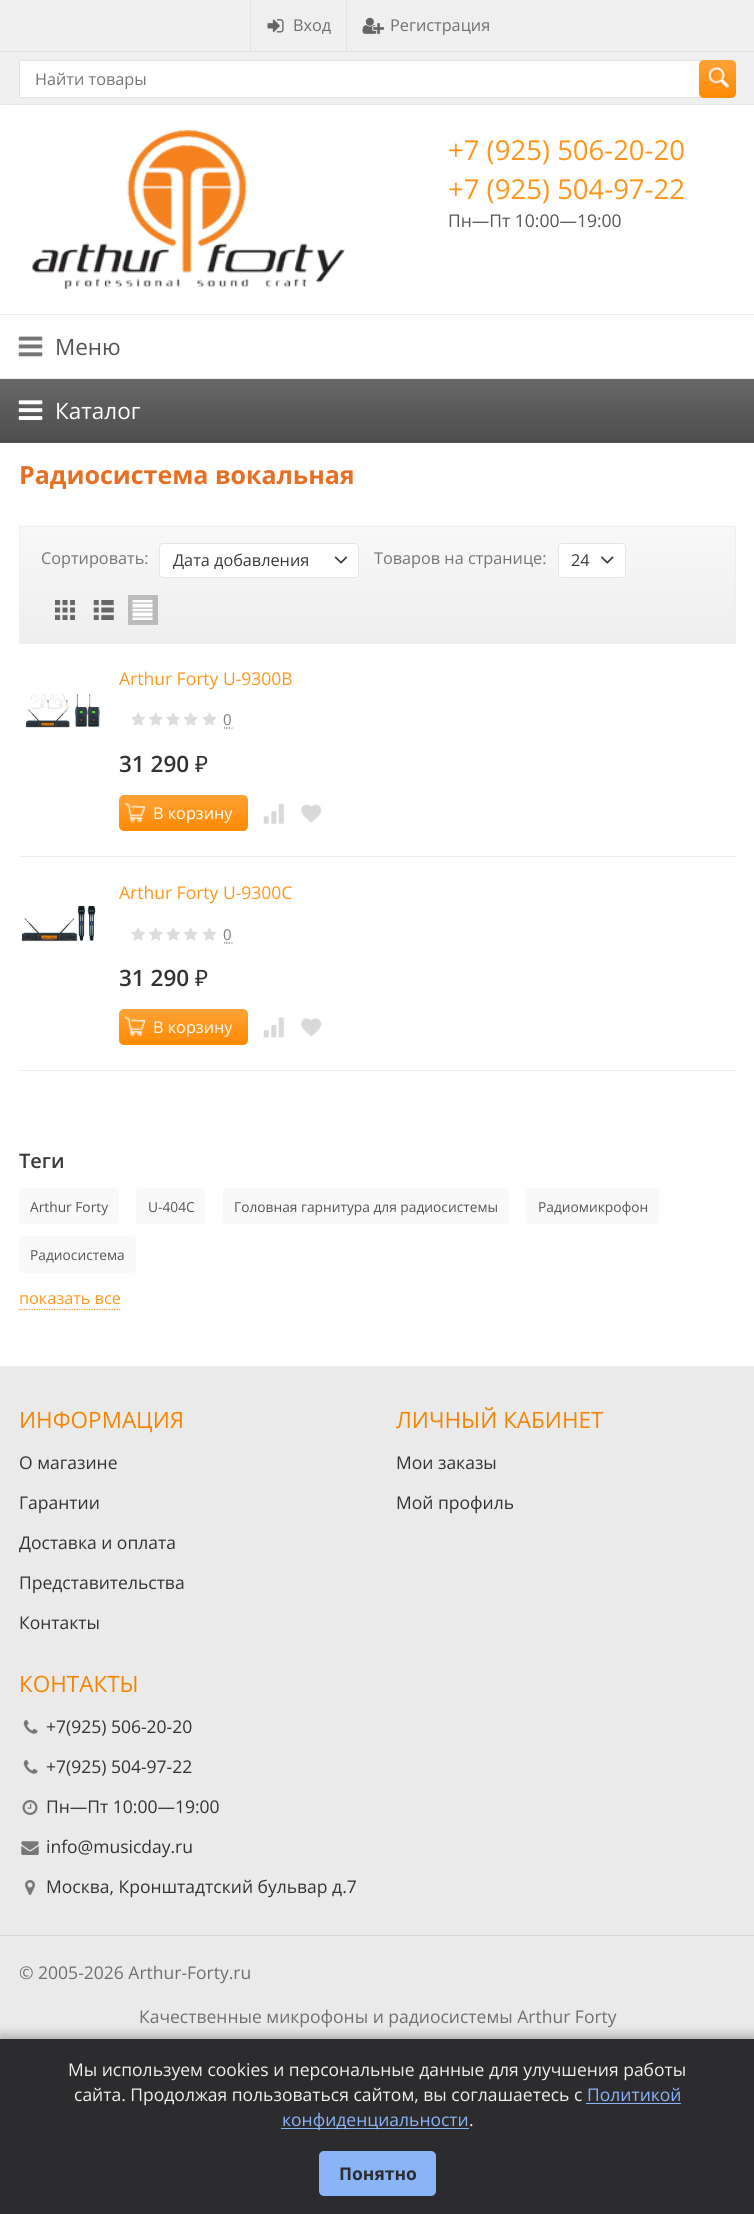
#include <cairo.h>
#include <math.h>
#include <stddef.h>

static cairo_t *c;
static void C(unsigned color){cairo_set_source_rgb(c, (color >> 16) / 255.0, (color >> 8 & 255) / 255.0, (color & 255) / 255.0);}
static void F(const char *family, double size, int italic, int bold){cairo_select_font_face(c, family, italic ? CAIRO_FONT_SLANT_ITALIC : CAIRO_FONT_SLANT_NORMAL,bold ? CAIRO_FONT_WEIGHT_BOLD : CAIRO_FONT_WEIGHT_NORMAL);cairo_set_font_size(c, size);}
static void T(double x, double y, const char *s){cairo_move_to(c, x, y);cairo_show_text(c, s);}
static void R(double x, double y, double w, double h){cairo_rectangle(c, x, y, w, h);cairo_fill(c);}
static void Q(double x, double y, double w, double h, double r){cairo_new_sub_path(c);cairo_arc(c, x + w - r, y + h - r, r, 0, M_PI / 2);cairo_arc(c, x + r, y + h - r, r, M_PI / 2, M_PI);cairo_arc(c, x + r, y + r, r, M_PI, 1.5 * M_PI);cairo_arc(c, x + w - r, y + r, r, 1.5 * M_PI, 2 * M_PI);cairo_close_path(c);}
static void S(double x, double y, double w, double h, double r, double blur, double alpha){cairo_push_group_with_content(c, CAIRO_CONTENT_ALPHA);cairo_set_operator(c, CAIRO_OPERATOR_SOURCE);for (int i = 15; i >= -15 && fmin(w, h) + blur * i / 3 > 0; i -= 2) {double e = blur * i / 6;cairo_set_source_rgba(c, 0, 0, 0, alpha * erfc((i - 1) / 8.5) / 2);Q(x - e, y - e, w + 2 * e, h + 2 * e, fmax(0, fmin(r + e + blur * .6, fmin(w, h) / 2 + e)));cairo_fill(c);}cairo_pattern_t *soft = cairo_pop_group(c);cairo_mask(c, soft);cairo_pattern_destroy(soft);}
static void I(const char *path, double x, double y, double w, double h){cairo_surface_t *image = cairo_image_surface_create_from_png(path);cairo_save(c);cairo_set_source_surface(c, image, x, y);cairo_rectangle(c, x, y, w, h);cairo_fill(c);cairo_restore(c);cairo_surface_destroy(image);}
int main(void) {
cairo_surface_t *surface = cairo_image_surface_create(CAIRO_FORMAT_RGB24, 754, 2214);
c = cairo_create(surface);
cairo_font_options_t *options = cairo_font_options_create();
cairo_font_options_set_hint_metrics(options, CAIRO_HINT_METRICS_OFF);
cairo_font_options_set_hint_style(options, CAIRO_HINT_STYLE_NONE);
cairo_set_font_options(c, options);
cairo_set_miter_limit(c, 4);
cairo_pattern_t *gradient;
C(0xffffff);
cairo_paint(c);
C(0xf0eff0);
R(0,0,754,105);
C(0xe6e8ea);
Q(0,104,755,1,.5);
cairo_fill(c);
C(0xe2e1e2);
R(250,0,1,51);
I("1.png",267,19,17,14);
F("Open Sans",16.25,0,0);
C(0x6f6f6f);
T(293,31,"Вход");
C(0xe2e1e2);
R(346,0,1,51);
I("2.png",362,17,22,17);
C(0x6f6f6f);
T(390,31,"Регистрация");
C(0xe2e1e2);
R(0,51,754,1);
C(0xffffff);
Q(19.5,60.5,716,37,2);
cairo_fill_preserve(c);
C(0xe4e4e4);
cairo_set_line_width(c,1);
cairo_stroke(c);
C(0x757575);
T(35,85,"Найти товары");
gradient = cairo_pattern_create_linear(718,60,718,98);
cairo_pattern_add_color_stop_rgba(gradient,0,1,0.635,0.212,1);
cairo_pattern_add_color_stop_rgba(gradient,1,1,0.541,0.012,1);
cairo_set_source(c,gradient);
cairo_pattern_destroy(gradient);
Q(699,60,37,38,5);
cairo_fill(c);
I("3.png",708,67,21,21);
I("4.png",32,130,313,159);
F("Open Sans",27.5,0,0);
C(0xff961c);
T(448,160,"+7 (925) 506-20-20");
T(448,199,"+7 (925) 504-97-22");
F("Open Sans",17.5,0,0);
C(0x555555);
T(448,227,"Пн—Пт 10:00—19:00");
C(0xeeeff0);
R(0,314,754,1);
R(0,378,754,1);
I("5.png",18,336,25,21);
F("Open Sans",22.5,0,0);
C(0x555555);
T(55,355,"Меню");
C(0x5b5b5b);
R(0,442,754,1);
gradient = cairo_pattern_create_linear(378,379,378,441);
cairo_pattern_add_color_stop_rgba(gradient,0,0.408,0.408,0.408,1);
cairo_pattern_add_color_stop_rgba(gradient,1,0.306,0.306,0.306,1);
cairo_set_source(c,gradient);
cairo_pattern_destroy(gradient);
R(0,379,754,62);
C(0x494949);
R(0,441,754,1);
I("6.png",18,400,25,20);
C(0xffffff);
T(55,419,"Каталог");
F("Open Sans",25,0,1);
C(0xe66f23);
T(19,484,"Радиосистема вокальная");
C(0xf7f7f7);
R(20,527,715,1);
gradient = cairo_pattern_create_linear(378,527,378,643);
cairo_pattern_add_color_stop_rgba(gradient,0,0.973,0.973,0.973,1);
cairo_pattern_add_color_stop_rgba(gradient,1,0.933,0.933,0.933,1);
cairo_set_source(c,gradient);
cairo_pattern_destroy(gradient);
R(20,528,715,115);
cairo_rectangle(c,19.5,526.5,716,117);
C(0xeeeeee);
cairo_stroke(c);
F("Open Sans",16.25,0,0);
C(0x757575);
T(41,564,"Сортировать:");
C(0xffffff);
Q(159.5,543.5,199,34,3.5);
cairo_fill_preserve(c);
C(0xe5e5e5);
cairo_stroke(c);
C(0x3a3a3a);
T(173,566,"Дата добавления");
I("7.png",334,556,14,8);
C(0x757575);
T(374,564,"Товаров на странице:");
C(0xffffff);
Q(558.5,543.5,67,34,3.5);
cairo_fill_preserve(c);
C(0xe5e5e5);
cairo_stroke(c);
C(0x3a3a3a);
T(571,566,"24");
I("8.png",601,556,13,8);
I("9.png",55,600,20,20);
I("10.png",93,600,21,20);
C(0xbbbbbb);
R(128,595,30,30);
I("11.png",132,600,21,20);
C(0xeeeeee);
R(19,856,717,1);
I("12.png",25,693,75,35);
F("Open Sans",17.5,0,0);
C(0xff961c);
T(119,685,"Arthur Forty U-9300B");
I("13.png",131,712,14,14);
I("14.png",149,712,14,14);
I("13.png",166,712,14,14);
I("14.png",184,712,14,14);
I("15.png",202,712,15,14);
cairo_new_path(c);
cairo_move_to(c,224,728);
cairo_line_to(c,225,728);
cairo_move_to(c,226,728);
cairo_line_to(c,227.5,728);
cairo_move_to(c,228.5,728);
cairo_line_to(c,230,728);
cairo_move_to(c,231.5,728);
cairo_line_to(c,232.5,728);
C(0x7e7e7e);
cairo_set_line_width(c,1.2);
cairo_stroke(c);
F("Open Sans",15,0,0);
T(223,725,"0");
F("Open Sans SemiBold",22.5,0,0);
C(0x333333);
T(119,772,"31 290");
F("Noto Sans",22.5,0,0);
T(195,772,"₽");
gradient = cairo_pattern_create_linear(183,795,183,831);
cairo_pattern_add_color_stop_rgba(gradient,0,1,0.635,0.212,1);
cairo_pattern_add_color_stop_rgba(gradient,1,1,0.541,0.012,1);
cairo_set_source(c,gradient);
cairo_pattern_destroy(gradient);
Q(119,795,129,36,5);
cairo_fill(c);
I("16.png",125,802,20,21);
F("Open Sans",16.25,0,0);
C(0xffffff);
T(153,819,"В корзину");
I("17.png",263,803,21,21);
I("18.png",301,804,21,19);
C(0xeeeeee);
R(19,1070,717,1);
I("19.png",21,905,75,37);
F("Open Sans",17.5,0,0);
C(0xff961c);
T(119,899,"Arthur Forty U-9300C");
I("13.png",131,927,14,14);
I("14.png",149,927,14,14);
I("13.png",166,927,14,14);
I("14.png",184,927,14,14);
I("15.png",202,927,15,14);
cairo_new_path(c);
cairo_move_to(c,224,943);
cairo_line_to(c,225,943);
cairo_move_to(c,226,943);
cairo_line_to(c,227.5,943);
cairo_move_to(c,228.5,943);
cairo_line_to(c,230,943);
cairo_move_to(c,231.5,943);
cairo_line_to(c,232.5,943);
C(0x7e7e7e);
cairo_stroke(c);
F("Open Sans",15,0,0);
T(223,940,"0");
F("Open Sans SemiBold",22.5,0,0);
C(0x333333);
T(119,986,"31 290");
F("Noto Sans",22.5,0,0);
T(195,986,"₽");
gradient = cairo_pattern_create_linear(183,1009,183,1045);
cairo_pattern_add_color_stop_rgba(gradient,0,1,0.635,0.212,1);
cairo_pattern_add_color_stop_rgba(gradient,1,1,0.541,0.012,1);
cairo_set_source(c,gradient);
cairo_pattern_destroy(gradient);
Q(119,1009,129,36,5);
cairo_fill(c);
I("20.png",125,1016,20,21);
F("Open Sans",16.25,0,0);
C(0xffffff);
T(153,1033,"В корзину");
I("21.png",263,1017,21,21);
I("22.png",301,1018,21,19);
F("Open Sans SemiBold",20,0,0);
C(0x3a3a3a);
T(19,1168,"Теги");
C(0xf9f9f9);
Q(19,1188,100,36,4);
cairo_fill(c);
F("Open Sans",13.75,0,0);
C(0x555555);
T(30,1212,"Arthur Forty");
C(0xf9f9f9);
Q(136,1188,69,36,4);
cairo_fill(c);
C(0x555555);
T(148,1212,"U-404C");
C(0xf9f9f9);
Q(223,1188,286,36,4);
cairo_fill(c);
C(0x555555);
T(234,1212,"Головная гарнитура для радиосистемы");
C(0xf9f9f9);
Q(526,1188,133,36,4);
cairo_fill(c);
C(0x555555);
T(538,1212,"Радиомикрофон");
C(0xf9f9f9);
Q(19,1236,117,37,4);
cairo_fill(c);
C(0x555555);
T(30,1260,"Радиосистема");
F("Open Sans",16.25,0,0);
C(0xff961c);
T(19,1304,"показать все");
cairo_new_path(c);
cairo_move_to(c,19,1309.5);
cairo_line_to(c,121,1309.5);
cairo_set_dash(c,(double[]){1.25,1.25},2,0);
cairo_stroke(c);
C(0xeaeaea);
R(0,1366,754,673);
F("Open Sans",22.5,0,0);
C(0xf58400);
T(19,1428,"ИНФОРМАЦИЯ");
F("Open Sans",17.5,0,0);
C(0x333333);
T(19,1469,"О магазине");
T(19,1509,"Гарантии");
T(19,1549,"Доставка и оплата");
T(19,1589,"Представительства");
T(19,1629,"Контакты");
F("Open Sans",22.5,0,0);
C(0xf58400);
T(396,1428,"ЛИЧНЫЙ КАБИНЕТ");
F("Open Sans",17.5,0,0);
C(0x333333);
T(396,1469,"Мои заказы");
T(396,1509,"Мой профиль");
F("Open Sans",22.5,0,0);
C(0xf58400);
T(19,1692,"КОНТАКТЫ");
I("23.png",23,1720,15,14);
F("Open Sans",17.5,0,0);
C(0x333333);
T(46,1733,"+7(925) 506-20-20");
I("23.png",23,1760,15,14);
T(46,1773,"+7(925) 504-97-22");
I("24.png",22,1800,16,15);
T(46,1813,"Пн—Пт 10:00—19:00");
I("25.png",21,1841,18,14);
T(46,1853,"info@musicday.ru");
I("26.png",25,1880,10,15);
T(46,1893,"Москва, Кронштадтский бульвар д.7");
C(0xd5d5d5);
R(0,1935,754,1);
C(0x6f6f6f);
T(19,1979,"© 2005-2026 Arthur-Forty.ru");
T(139,2023,"Качественные микрофоны и радиосистемы Arthur Forty");
C(0x000000);
S(0,2036,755,177,0,6,.3);
C(0x2c2c2e);
R(0,2039,754,175);
C(0xf1f1f1);
T(68,2076,"Мы используем cookies и персональные данные для улучшения работы");
T(74,2101,"сайта. Продолжая пользоваться сайтом, вы соглашаетесь с");
C(0x8ab4f8);
T(587,2101,"Политикой");
R(586,2103,95,1);
R(281,2128,188,1);
T(282,2126,"конфиденциальности");
C(0xf1f1f1);
T(469,2126,".");
C(0x8ab4f8);
Q(319,2151,117,45,5);
cairo_fill(c);
F("Open Sans",17.5,0,1);
C(0x2c2c2e);
T(339,2180,"Понятно");
cairo_surface_write_to_png(surface, "o.png");
cairo_font_options_destroy(options);
cairo_destroy(c);
cairo_surface_destroy(surface);
return 0;
}
